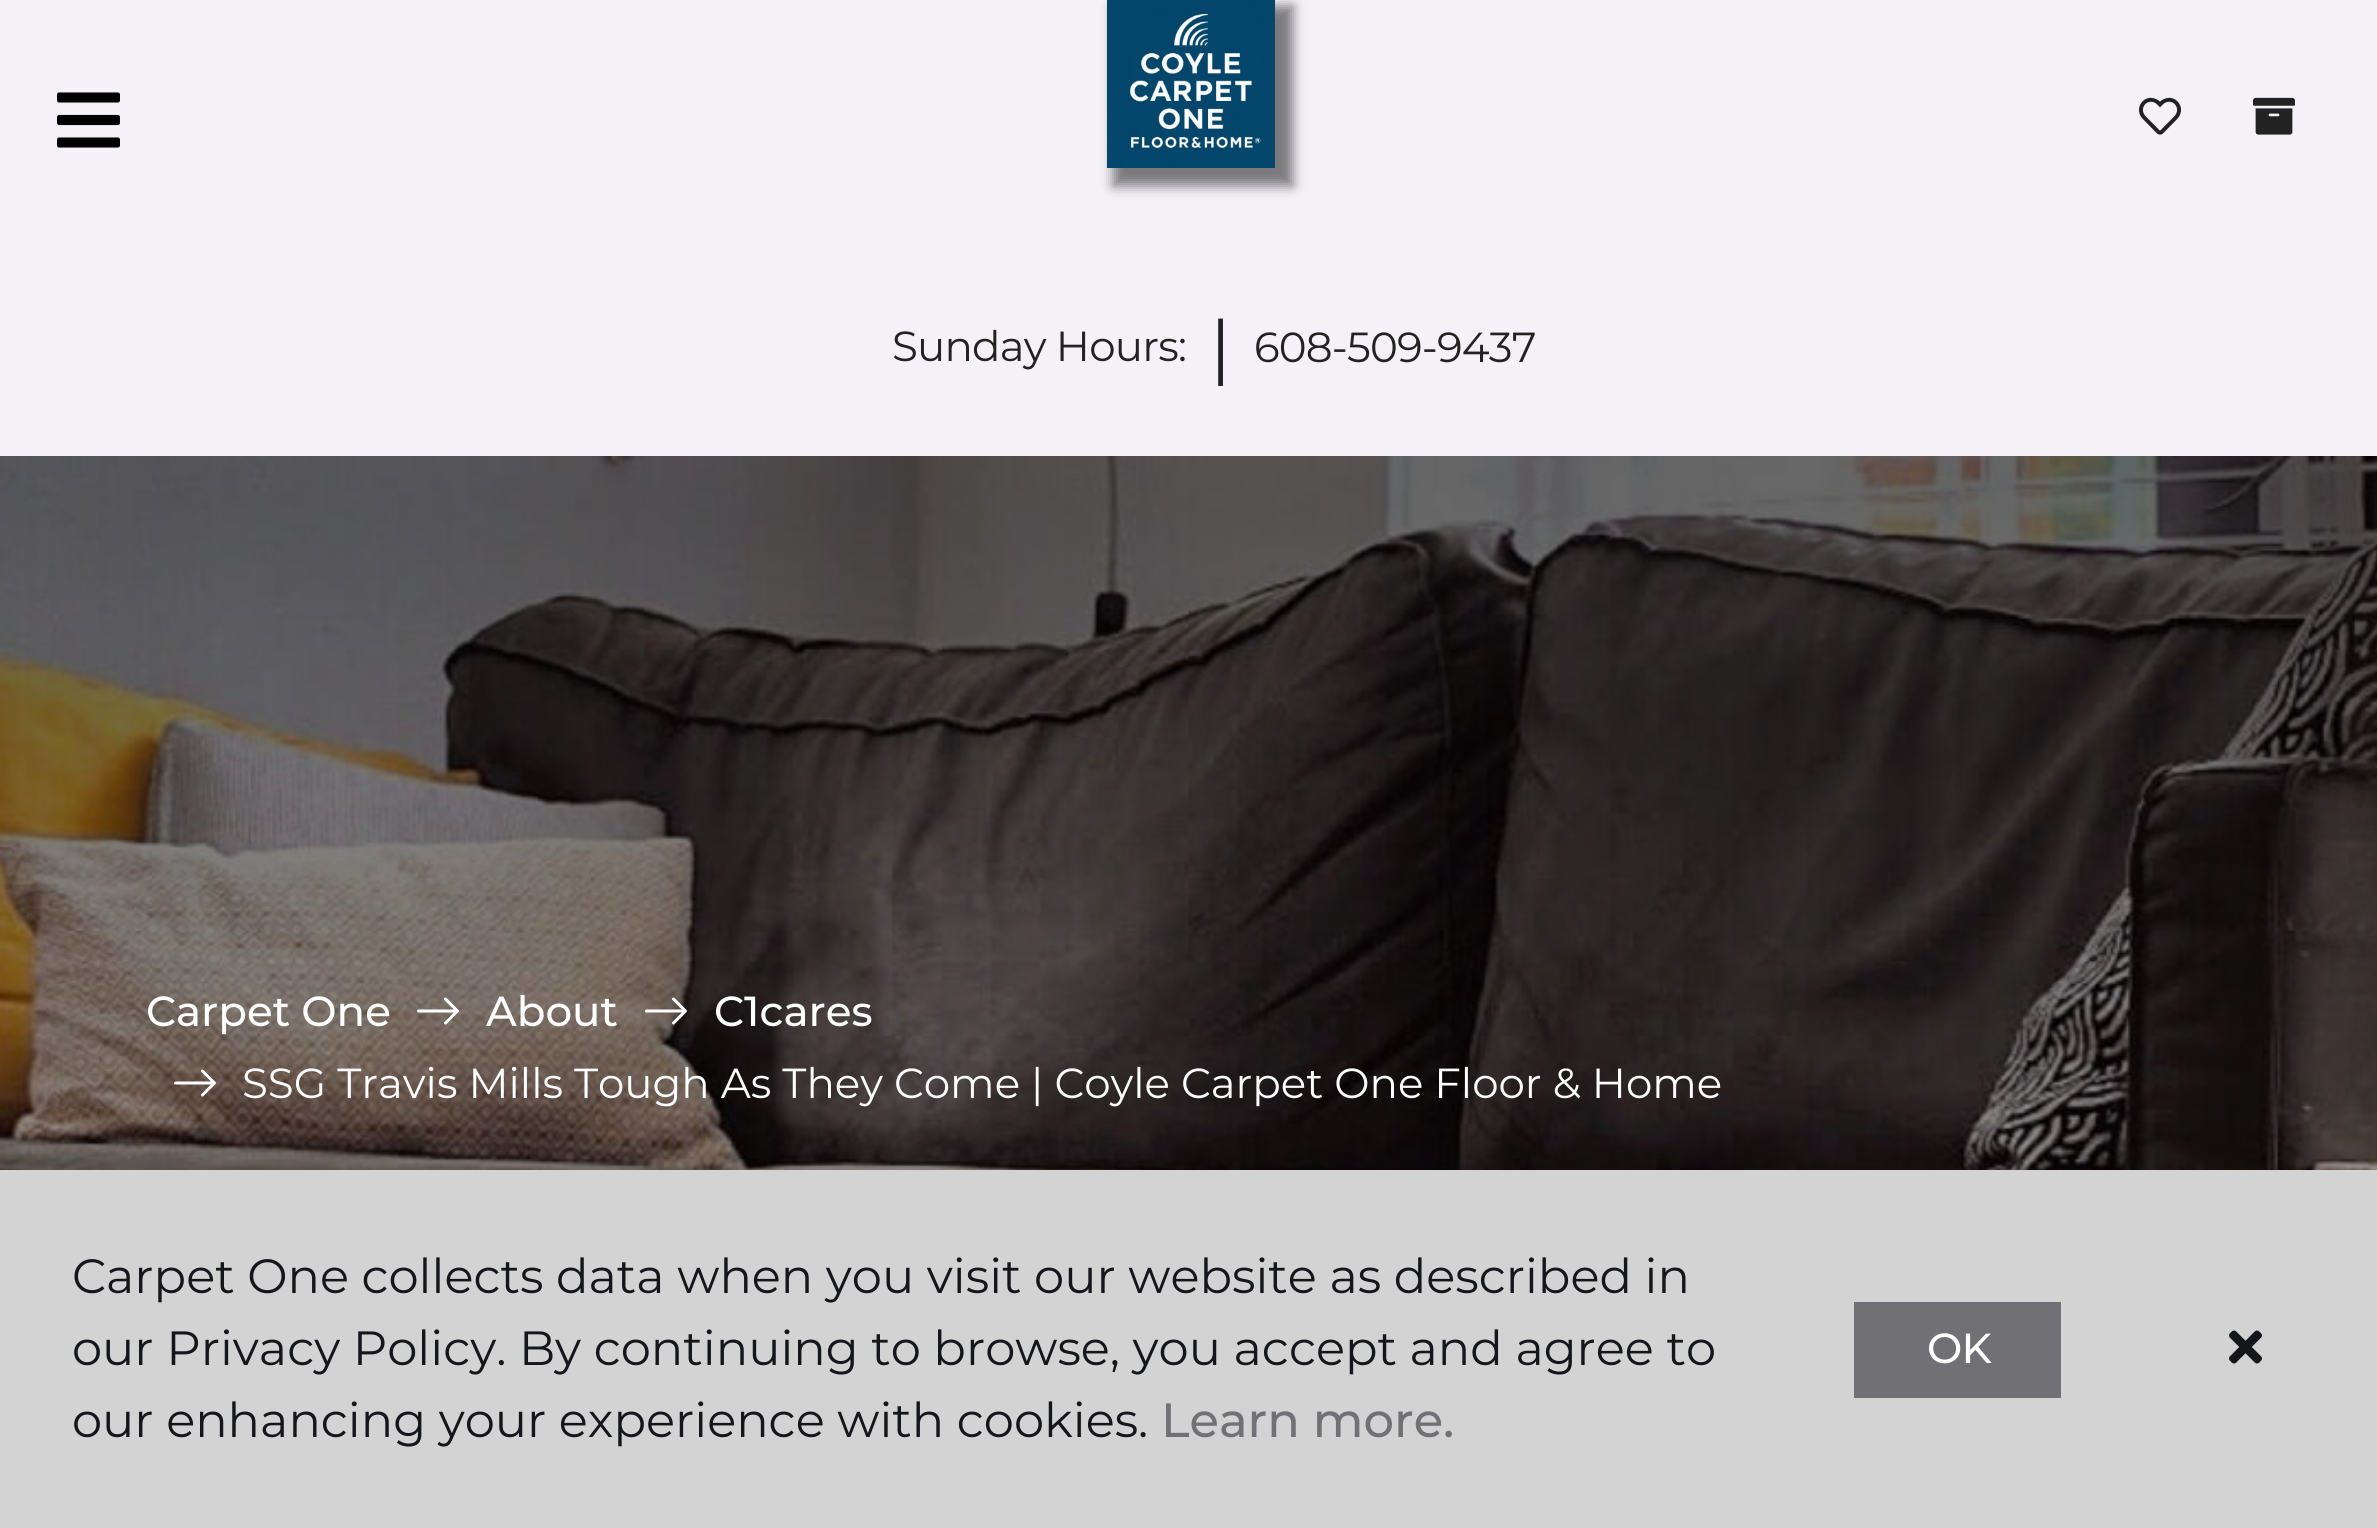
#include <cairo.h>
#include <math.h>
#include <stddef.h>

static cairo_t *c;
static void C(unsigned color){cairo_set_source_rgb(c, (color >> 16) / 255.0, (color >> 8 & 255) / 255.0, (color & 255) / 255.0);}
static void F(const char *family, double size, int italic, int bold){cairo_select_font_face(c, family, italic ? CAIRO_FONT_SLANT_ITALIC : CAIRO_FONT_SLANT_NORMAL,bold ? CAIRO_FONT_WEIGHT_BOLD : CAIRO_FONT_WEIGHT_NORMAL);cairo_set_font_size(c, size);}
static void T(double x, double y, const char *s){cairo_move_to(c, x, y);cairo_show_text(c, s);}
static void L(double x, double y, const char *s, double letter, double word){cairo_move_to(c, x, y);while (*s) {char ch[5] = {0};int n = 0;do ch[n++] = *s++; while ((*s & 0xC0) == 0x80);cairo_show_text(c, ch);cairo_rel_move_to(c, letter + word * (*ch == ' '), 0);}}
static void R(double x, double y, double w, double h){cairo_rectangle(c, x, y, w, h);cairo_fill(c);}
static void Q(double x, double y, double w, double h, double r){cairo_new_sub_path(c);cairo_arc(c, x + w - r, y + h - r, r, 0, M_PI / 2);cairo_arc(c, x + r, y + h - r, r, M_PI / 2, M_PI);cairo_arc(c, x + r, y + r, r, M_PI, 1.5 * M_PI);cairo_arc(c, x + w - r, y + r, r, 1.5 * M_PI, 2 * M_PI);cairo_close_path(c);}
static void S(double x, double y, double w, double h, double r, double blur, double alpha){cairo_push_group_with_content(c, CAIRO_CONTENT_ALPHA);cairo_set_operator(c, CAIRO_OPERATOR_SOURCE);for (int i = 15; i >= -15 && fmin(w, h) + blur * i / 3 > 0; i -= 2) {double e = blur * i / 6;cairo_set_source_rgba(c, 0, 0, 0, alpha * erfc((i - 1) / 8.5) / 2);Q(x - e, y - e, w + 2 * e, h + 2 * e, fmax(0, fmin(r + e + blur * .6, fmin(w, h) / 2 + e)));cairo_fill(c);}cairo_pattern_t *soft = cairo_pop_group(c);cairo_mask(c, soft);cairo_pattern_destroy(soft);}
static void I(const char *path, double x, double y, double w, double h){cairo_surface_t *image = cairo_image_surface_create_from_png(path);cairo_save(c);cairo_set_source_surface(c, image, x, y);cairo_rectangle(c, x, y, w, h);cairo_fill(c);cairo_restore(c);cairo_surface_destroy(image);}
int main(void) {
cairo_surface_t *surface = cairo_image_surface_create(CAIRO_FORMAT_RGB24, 2377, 1528);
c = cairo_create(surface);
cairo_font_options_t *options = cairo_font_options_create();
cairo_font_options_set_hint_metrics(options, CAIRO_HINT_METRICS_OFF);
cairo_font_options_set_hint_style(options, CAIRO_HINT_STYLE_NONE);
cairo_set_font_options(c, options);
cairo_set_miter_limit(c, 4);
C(0xf4f2f7);
cairo_paint(c);
I("1.png",57,92,63,56);
C(0x000000);
S(1113,6,180,180,0,6,.5);
I("2.png",1107,0,168,168);
I("3.png",2139,97,42,38);
I("4.png",2253,97,42,38);
F("Montserrat",42,0,0);
C(0x222222);
L(892,361,"Sunday Hours:",-.8,0);
F("Montserrat",72,0,0);
L(1210,372,"|",-.8,0);
F("Montserrat",42,0,0);
L(1254,362,"608-509-9437",-.8,0);
I("5.png",0,456,2377,714);
F("Montserrat Medium",42,0,0);
C(0xffffff);
T(146,1026,"Carpet One");
I("6.png",417,997,42,28);
T(486,1026,"About");
I("7.png",645,997,42,28);
T(714,1026,"C1cares");
I("8.png",174,1069,42,28);
F("Montserrat",42,0,0);
T(242,1098,"SSG Travis Mills Tough As They Come | Coyle Carpet One Floor & Home");
C(0xd3d3d4);
R(0,1170,2377,358);
F("Montserrat",48,0,0);
C(0x141619);
T(72,1293,"Carpet One collects data when you visit our website as described in");
T(72,1365,"our Privacy Policy. By continuing to browse, you accept and agree to");
T(72,1437,"our enhancing your experience with cookies.");
F("Montserrat Medium",48,0,0);
C(0x717074);
T(1161,1437,"Learn more.");
R(1854,1302,207,96);
F("Montserrat Medium",42,0,0);
C(0xffffff);
L(1927,1363,"OK",-.8,0);
I("9.png",2229,1330,33,34);
cairo_surface_write_to_png(surface, "o.png");
cairo_font_options_destroy(options);
cairo_destroy(c);
cairo_surface_destroy(surface);
return 0;
}
